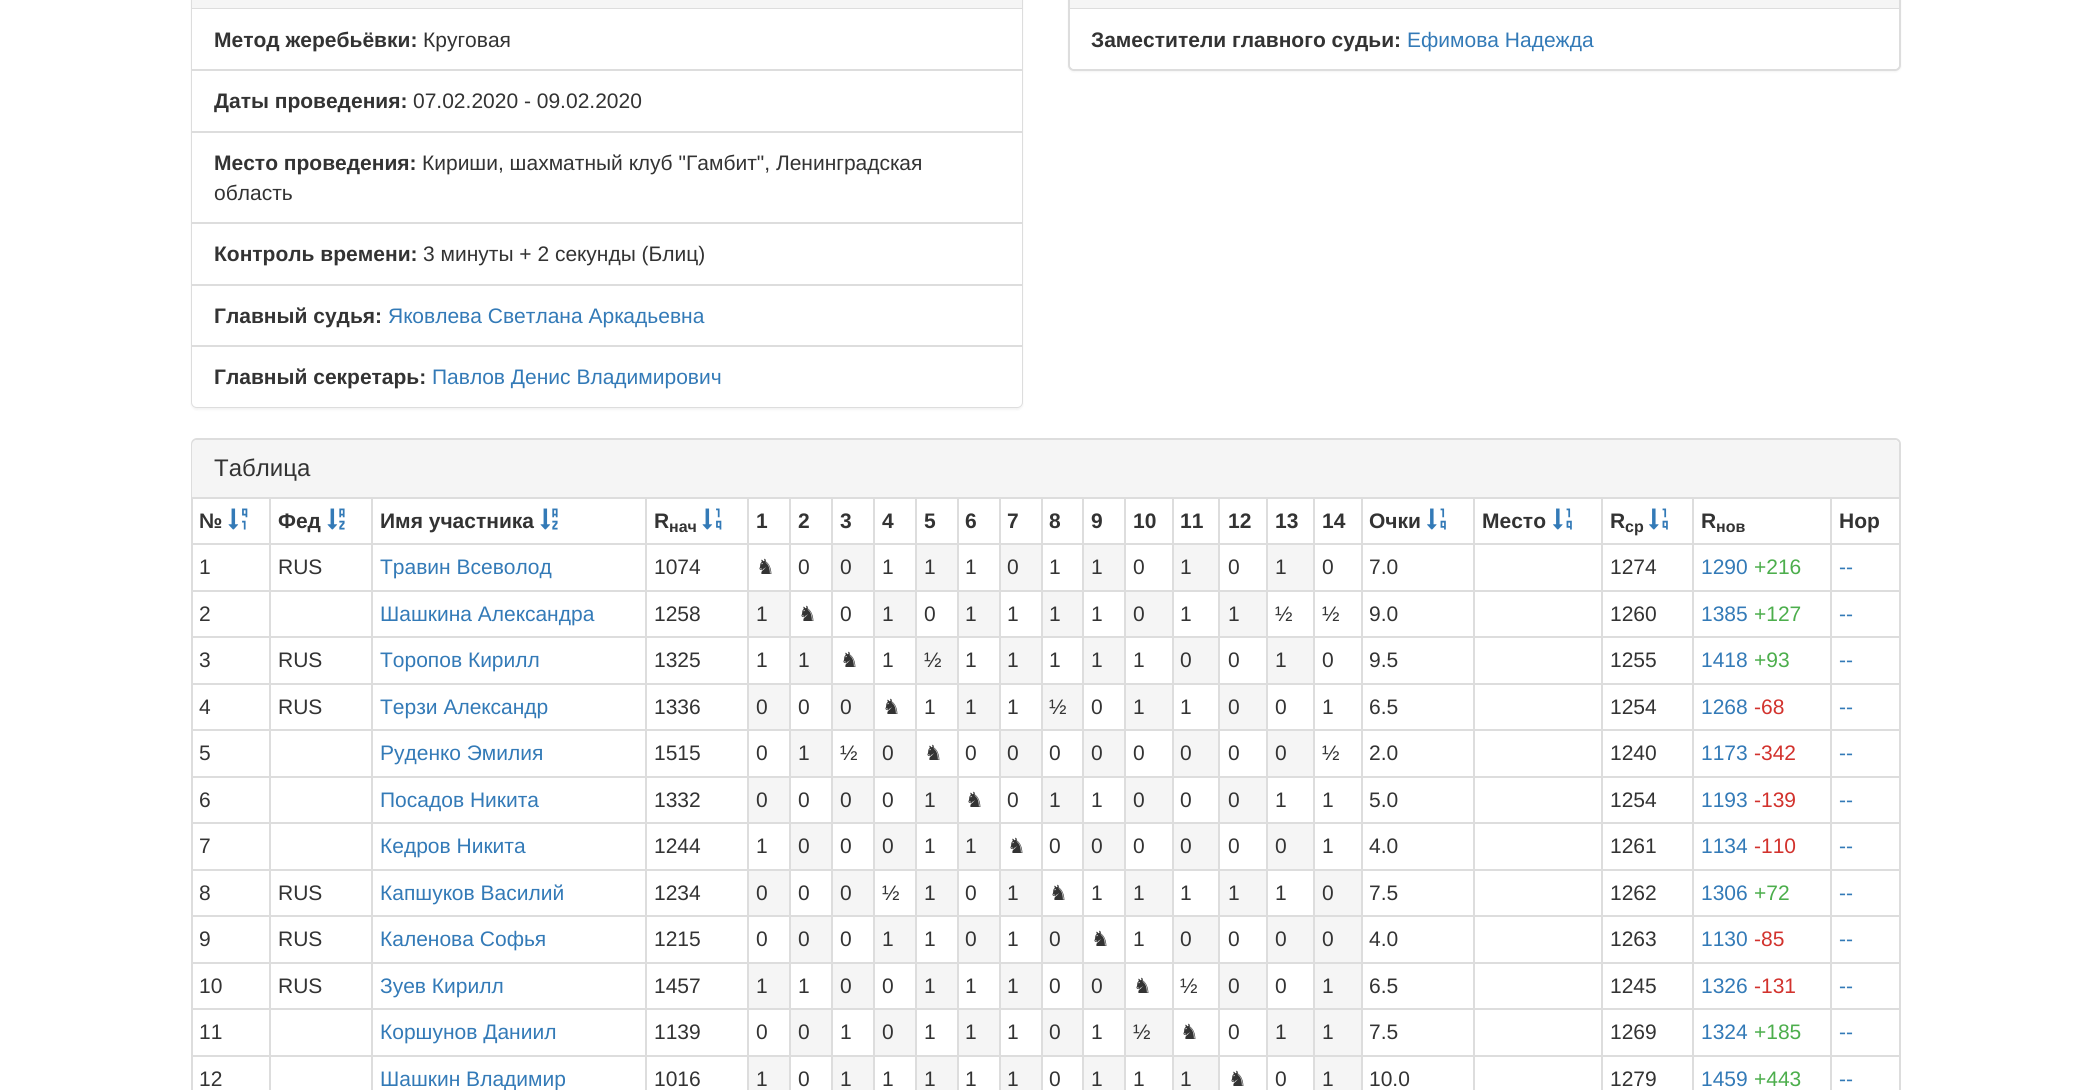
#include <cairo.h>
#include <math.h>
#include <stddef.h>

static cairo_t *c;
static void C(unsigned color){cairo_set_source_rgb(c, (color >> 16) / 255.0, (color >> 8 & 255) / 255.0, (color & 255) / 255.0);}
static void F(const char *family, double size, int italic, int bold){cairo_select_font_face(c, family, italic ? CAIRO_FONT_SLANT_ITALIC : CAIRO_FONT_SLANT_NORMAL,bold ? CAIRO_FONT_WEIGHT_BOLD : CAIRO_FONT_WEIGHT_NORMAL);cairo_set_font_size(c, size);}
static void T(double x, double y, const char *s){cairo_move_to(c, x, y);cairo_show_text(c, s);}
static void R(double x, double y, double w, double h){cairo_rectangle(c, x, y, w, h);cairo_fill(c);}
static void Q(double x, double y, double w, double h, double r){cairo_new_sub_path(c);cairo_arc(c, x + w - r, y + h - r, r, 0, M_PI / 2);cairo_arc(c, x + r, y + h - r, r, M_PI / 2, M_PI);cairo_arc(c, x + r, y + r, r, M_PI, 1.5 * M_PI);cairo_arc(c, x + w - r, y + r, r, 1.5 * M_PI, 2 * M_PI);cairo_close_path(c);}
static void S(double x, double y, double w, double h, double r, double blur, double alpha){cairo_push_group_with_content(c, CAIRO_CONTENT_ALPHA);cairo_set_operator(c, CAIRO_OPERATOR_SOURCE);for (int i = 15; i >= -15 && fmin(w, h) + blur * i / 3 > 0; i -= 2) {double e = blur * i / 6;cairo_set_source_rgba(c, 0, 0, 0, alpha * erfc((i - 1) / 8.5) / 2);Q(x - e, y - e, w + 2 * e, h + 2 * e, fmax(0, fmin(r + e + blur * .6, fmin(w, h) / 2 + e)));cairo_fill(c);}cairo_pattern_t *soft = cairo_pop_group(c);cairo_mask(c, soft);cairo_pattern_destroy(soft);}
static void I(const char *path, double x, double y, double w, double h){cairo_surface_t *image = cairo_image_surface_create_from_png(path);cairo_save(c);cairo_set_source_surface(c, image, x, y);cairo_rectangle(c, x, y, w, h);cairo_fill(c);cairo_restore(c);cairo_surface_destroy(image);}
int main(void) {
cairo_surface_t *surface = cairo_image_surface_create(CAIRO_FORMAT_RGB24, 2089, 1090);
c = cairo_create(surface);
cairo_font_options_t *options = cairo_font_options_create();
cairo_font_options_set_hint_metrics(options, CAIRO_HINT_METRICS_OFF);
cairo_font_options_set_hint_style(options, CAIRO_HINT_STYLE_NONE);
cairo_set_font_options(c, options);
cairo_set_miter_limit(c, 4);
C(0xffffff);
cairo_paint(c);
C(0x000000);
S(191,-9,832,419,6,1,.05);
Q(192,-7,830,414,5);
C(0xdddddd);
cairo_stroke(c);
C(0xf5f5f5);
R(192,0,830,8);
C(0xdddddd);
R(192,8,830,1);
C(0xffffff);
R(192,9,830,60);
C(0xdddddd);
R(192,69,830,2);
F("Liberation Sans",21,0,1);
C(0x333333);
T(214,47,"Метод жеребьёвки:");
F("Liberation Sans",21,0,0);
T(423,47,"Круговая");
C(0xffffff);
R(192,71,830,60);
F("Liberation Sans",21,0,1);
C(0x333333);
T(214,108,"Даты проведения:");
F("Liberation Sans",21,0,0);
T(413,108,"07.02.2020 - 09.02.2020");
C(0xffffff);
R(192,133,830,89);
C(0xdddddd);
R(192,131,830,2);
R(192,222,830,2);
F("Liberation Sans",21,0,1);
C(0x333333);
T(214,170,"Место проведения:");
F("Liberation Sans",21,0,0);
T(422,170,"Кириши, шахматный клуб \"Гамбит\", Ленинградская");
T(214,200,"область");
C(0xffffff);
R(192,224,830,60);
F("Liberation Sans",21,0,1);
C(0x333333);
T(214,261,"Контроль времени:");
F("Liberation Sans",21,0,0);
T(423,261,"3 минуты + 2 секунды (Блиц)");
C(0xffffff);
R(192,286,830,59);
C(0xdddddd);
R(192,284,830,2);
F("Liberation Sans",21,0,1);
C(0x333333);
T(214,323,"Главный судья:");
F("Liberation Sans",21,0,0);
C(0x337ab7);
T(388,323,"Яковлева Светлана Аркадьевна");
C(0xffffff);
cairo_new_path(c);
cairo_move_to(c,192,345);
cairo_line_to(c,1022,345);
cairo_line_to(c,1022,402);
cairo_curve_to(c,1022,405,1020,407,1017,407);
cairo_line_to(c,197,407);
cairo_curve_to(c,194,407,192,405,192,402);
cairo_close_path(c);
cairo_fill(c);
C(0xdddddd);
R(192,345,830,2);
F("Liberation Sans",21,0,1);
C(0x333333);
T(214,384,"Главный секретарь:");
F("Liberation Sans",21,0,0);
C(0x337ab7);
T(432,384,"Павлов Денис Владимирович");
C(0x000000);
S(1068,-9,833,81,6,1,.05);
C(0xffffff);
Q(1069,-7,831,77,5);
cairo_fill_preserve(c);
C(0xdddddd);
cairo_stroke(c);
C(0xf5f5f5);
R(1070,0,829,8);
C(0xdddddd);
R(1070,8,829,1);
C(0xffffff);
cairo_new_path(c);
cairo_move_to(c,1070,9);
cairo_line_to(c,1899,9);
cairo_line_to(c,1899,64);
cairo_curve_to(c,1899,67,1897,69,1894,69);
cairo_line_to(c,1075,69);
cairo_curve_to(c,1072,69,1070,67,1070,64);
cairo_close_path(c);
cairo_fill(c);
F("Liberation Sans",21,0,1);
C(0x333333);
T(1091,47,"Заместители главного судьи:");
F("Liberation Sans",21,0,0);
C(0x337ab7);
T(1407,47,"Ефимова Надежда");
Q(192,439,1708,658,5);
C(0xdddddd);
cairo_stroke(c);
C(0xf5f5f5);
cairo_new_path(c);
cairo_move_to(c,197,440);
cairo_line_to(c,1894,440);
cairo_curve_to(c,1897,440,1899,442,1899,445);
cairo_line_to(c,1899,498);
cairo_line_to(c,192,498);
cairo_line_to(c,192,445);
cairo_curve_to(c,192,442,194,440,197,440);
cairo_close_path(c);
cairo_fill(c);
C(0xdddddd);
R(192,497,1707,2);
F("Liberation Sans",24,0,0);
C(0x333333);
T(214,476,"Таблица");
F("Liberation Sans",21,0,1);
T(199,528,"№");
I("1.png",228,508,20,22);
C(0xdddddd);
R(1830,543,69,2);
R(1830,590,69,2);
R(1830,636,69,2);
R(1830,683,69,2);
R(1830,729,69,2);
R(1830,776,69,2);
R(1830,822,69,2);
R(1830,869,69,2);
R(1830,915,69,2);
R(1830,962,69,2);
R(1830,1008,69,2);
R(1830,1055,69,2);
R(1830,1055,2,35);
R(1692,1055,140,2);
R(1830,1008,2,48);
R(1692,1008,140,2);
R(1830,962,2,48);
R(1692,962,140,2);
R(1830,915,2,48);
R(1692,915,140,2);
R(1830,869,2,48);
R(1692,869,140,2);
R(1830,822,2,48);
R(1692,822,140,2);
R(1830,776,2,48);
R(1692,776,140,2);
R(1830,729,2,48);
R(1692,729,140,2);
R(1830,683,2,48);
R(1692,683,140,2);
R(1830,636,2,48);
R(1692,636,140,2);
R(1830,590,2,48);
R(1692,590,140,2);
R(1830,543,2,48);
R(1692,543,140,2);
R(1692,1055,2,35);
R(1601,1055,93,2);
R(1692,1008,2,48);
R(1601,1008,93,2);
R(1692,962,2,48);
R(1601,962,93,2);
R(1692,915,2,48);
R(1601,915,93,2);
R(1692,869,2,48);
R(1601,869,93,2);
R(1692,822,2,48);
R(1601,822,93,2);
R(1692,776,2,48);
R(1601,776,93,2);
R(1692,729,2,48);
R(1601,729,93,2);
R(1692,683,2,48);
R(1601,683,93,2);
R(1692,636,2,48);
R(1601,636,93,2);
R(1692,590,2,48);
R(1601,590,93,2);
R(1692,543,2,48);
R(1601,543,93,2);
R(1601,1055,2,35);
R(1473,1055,129,2);
R(1601,1008,2,48);
R(1473,1008,129,2);
R(1601,962,2,48);
R(1473,962,129,2);
R(1601,915,2,48);
R(1473,915,129,2);
R(1601,869,2,48);
R(1473,869,129,2);
R(1601,822,2,48);
R(1473,822,129,2);
R(1601,776,2,48);
R(1473,776,129,2);
R(1601,729,2,48);
R(1473,729,129,2);
R(1601,683,2,48);
R(1473,683,129,2);
R(1601,636,2,48);
R(1473,636,129,2);
R(1601,590,2,48);
R(1473,590,129,2);
R(1601,543,2,48);
R(1473,543,129,2);
R(1473,1055,2,35);
R(1361,1055,114,2);
R(1473,1008,2,48);
R(1361,1008,114,2);
R(1473,962,2,48);
R(1361,962,114,2);
R(1473,915,2,48);
R(1361,915,114,2);
R(1473,869,2,48);
R(1361,869,114,2);
R(1473,822,2,48);
R(1361,822,114,2);
R(1473,776,2,48);
R(1361,776,114,2);
R(1473,729,2,48);
R(1361,729,114,2);
R(1473,683,2,48);
R(1361,683,114,2);
R(1473,636,2,48);
R(1361,636,114,2);
R(1473,590,2,48);
R(1361,590,114,2);
R(1473,543,2,48);
R(1361,543,114,2);
R(1361,1055,2,35);
R(1313,1055,49,2);
R(1361,1008,2,48);
R(1313,1008,49,2);
R(1361,962,2,48);
R(1313,962,49,2);
R(1361,915,2,48);
R(1313,915,49,2);
R(1361,869,2,48);
R(1313,869,49,2);
R(1361,822,2,48);
R(1313,822,49,2);
R(1361,776,2,48);
R(1313,776,49,2);
R(1361,729,2,48);
R(1313,729,49,2);
R(1361,683,2,48);
R(1313,683,49,2);
R(1361,636,2,48);
R(1313,636,49,2);
R(1361,590,2,48);
R(1313,590,49,2);
R(1361,543,2,48);
R(1313,543,49,2);
R(1313,1055,2,35);
R(1266,1055,48,2);
R(1313,1008,2,48);
R(1266,1008,48,2);
R(1313,962,2,48);
R(1266,962,48,2);
R(1313,915,2,48);
R(1266,915,48,2);
R(1313,869,2,48);
R(1266,869,48,2);
R(1313,822,2,48);
R(1266,822,48,2);
R(1313,776,2,48);
R(1266,776,48,2);
R(1313,729,2,48);
R(1266,729,48,2);
R(1313,683,2,48);
R(1266,683,48,2);
R(1313,636,2,48);
R(1266,636,48,2);
R(1313,590,2,48);
R(1266,590,48,2);
R(1313,543,2,48);
R(1266,543,48,2);
R(1266,1055,2,35);
R(1218,1055,50,2);
R(1266,1008,2,48);
R(1218,1008,50,2);
R(1266,962,2,48);
R(1218,962,50,2);
R(1266,915,2,48);
R(1218,915,50,2);
R(1266,869,2,48);
R(1218,869,50,2);
R(1266,822,2,48);
R(1218,822,50,2);
R(1266,776,2,48);
R(1218,776,50,2);
R(1266,729,2,48);
R(1218,729,50,2);
R(1266,683,2,48);
R(1218,683,50,2);
R(1266,636,2,48);
R(1218,636,50,2);
R(1266,590,2,48);
R(1218,590,50,2);
R(1266,543,2,48);
R(1218,543,50,2);
R(1218,1055,2,35);
R(1172,1055,48,2);
R(1218,1008,2,48);
R(1172,1008,48,2);
R(1218,962,2,48);
R(1172,962,48,2);
R(1218,915,2,48);
R(1172,915,48,2);
R(1218,869,2,48);
R(1172,869,48,2);
R(1218,822,2,48);
R(1172,822,48,2);
R(1218,776,2,48);
R(1172,776,48,2);
R(1218,729,2,48);
R(1172,729,48,2);
R(1218,683,2,48);
R(1172,683,48,2);
R(1218,636,2,48);
R(1172,636,48,2);
R(1218,590,2,48);
R(1172,590,48,2);
R(1218,543,2,48);
R(1172,543,48,2);
R(1172,1055,2,35);
R(1124,1055,49,2);
R(1172,1008,2,48);
R(1124,1008,49,2);
R(1172,962,2,48);
R(1124,962,49,2);
R(1172,915,2,48);
R(1124,915,49,2);
R(1172,869,2,48);
R(1124,869,49,2);
R(1172,822,2,48);
R(1124,822,49,2);
R(1172,776,2,48);
R(1124,776,49,2);
R(1172,729,2,48);
R(1124,729,49,2);
R(1172,683,2,48);
R(1124,683,49,2);
R(1172,636,2,48);
R(1124,636,49,2);
R(1172,590,2,48);
R(1124,590,49,2);
R(1172,543,2,48);
R(1124,543,49,2);
R(1124,1055,2,35);
R(1082,1055,43,2);
R(1124,1008,2,48);
R(1082,1008,43,2);
R(1124,962,2,48);
R(1082,962,43,2);
R(1124,915,2,48);
R(1082,915,43,2);
R(1124,869,2,48);
R(1082,869,43,2);
R(1124,822,2,48);
R(1082,822,43,2);
R(1124,776,2,48);
R(1082,776,43,2);
R(1124,729,2,48);
R(1082,729,43,2);
R(1124,683,2,48);
R(1082,683,43,2);
R(1124,636,2,48);
R(1082,636,43,2);
R(1124,590,2,48);
R(1082,590,43,2);
R(1124,543,2,48);
R(1082,543,43,2);
R(1082,1055,2,35);
R(1041,1055,42,2);
R(1082,1008,2,48);
R(1041,1008,42,2);
R(1082,962,2,48);
R(1041,962,42,2);
R(1082,915,2,48);
R(1041,915,42,2);
R(1082,869,2,48);
R(1041,869,42,2);
R(1082,822,2,48);
R(1041,822,42,2);
R(1082,776,2,48);
R(1041,776,42,2);
R(1082,729,2,48);
R(1041,729,42,2);
R(1082,683,2,48);
R(1041,683,42,2);
R(1082,636,2,48);
R(1041,636,42,2);
R(1082,590,2,48);
R(1041,590,42,2);
R(1082,543,2,48);
R(1041,543,42,2);
R(1041,1055,2,35);
R(999,1055,44,2);
R(1041,1008,2,48);
R(999,1008,44,2);
R(1041,962,2,48);
R(999,962,44,2);
R(1041,915,2,48);
R(999,915,44,2);
R(1041,869,2,48);
R(999,869,44,2);
R(1041,822,2,48);
R(999,822,44,2);
R(1041,776,2,48);
R(999,776,44,2);
R(1041,729,2,48);
R(999,729,44,2);
R(1041,683,2,48);
R(999,683,44,2);
R(1041,636,2,48);
R(999,636,44,2);
R(1041,590,2,48);
R(999,590,44,2);
R(1041,543,2,48);
R(999,543,44,2);
R(999,1055,2,35);
R(957,1055,44,2);
R(999,1008,2,48);
R(957,1008,44,2);
R(999,962,2,48);
R(957,962,44,2);
R(999,915,2,48);
R(957,915,44,2);
R(999,869,2,48);
R(957,869,44,2);
R(999,822,2,48);
R(957,822,44,2);
R(999,776,2,48);
R(957,776,44,2);
R(999,729,2,48);
R(957,729,44,2);
R(999,683,2,48);
R(957,683,44,2);
R(999,636,2,48);
R(957,636,44,2);
R(999,590,2,48);
R(957,590,44,2);
R(999,543,2,48);
R(957,543,44,2);
R(957,1055,2,35);
R(915,1055,44,2);
R(957,1008,2,48);
R(915,1008,44,2);
R(957,962,2,48);
R(915,962,44,2);
R(957,915,2,48);
R(915,915,44,2);
R(957,869,2,48);
R(915,869,44,2);
R(957,822,2,48);
R(915,822,44,2);
R(957,776,2,48);
R(915,776,44,2);
R(957,729,2,48);
R(915,729,44,2);
R(957,683,2,48);
R(915,683,44,2);
R(957,636,2,48);
R(915,636,44,2);
R(957,590,2,48);
R(915,590,44,2);
R(957,543,2,48);
R(915,543,44,2);
R(915,1055,2,35);
R(873,1055,44,2);
R(915,1008,2,48);
R(873,1008,44,2);
R(915,962,2,48);
R(873,962,44,2);
R(915,915,2,48);
R(873,915,44,2);
R(915,869,2,48);
R(873,869,44,2);
R(915,822,2,48);
R(873,822,44,2);
R(915,776,2,48);
R(873,776,44,2);
R(915,729,2,48);
R(873,729,44,2);
R(915,683,2,48);
R(873,683,44,2);
R(915,636,2,48);
R(873,636,44,2);
R(915,590,2,48);
R(873,590,44,2);
R(915,543,2,48);
R(873,543,44,2);
R(873,1055,2,35);
R(831,1055,44,2);
R(873,1008,2,48);
R(831,1008,44,2);
R(873,962,2,48);
R(831,962,44,2);
R(873,915,2,48);
R(831,915,44,2);
R(873,869,2,48);
R(831,869,44,2);
R(873,822,2,48);
R(831,822,44,2);
R(873,776,2,48);
R(831,776,44,2);
R(873,729,2,48);
R(831,729,44,2);
R(873,683,2,48);
R(831,683,44,2);
R(873,636,2,48);
R(831,636,44,2);
R(873,590,2,48);
R(831,590,44,2);
R(873,543,2,48);
R(831,543,44,2);
R(831,1055,2,35);
R(789,1055,44,2);
R(831,1008,2,48);
R(789,1008,44,2);
R(831,962,2,48);
R(789,962,44,2);
R(831,915,2,48);
R(789,915,44,2);
R(831,869,2,48);
R(789,869,44,2);
R(831,822,2,48);
R(789,822,44,2);
R(831,776,2,48);
R(789,776,44,2);
R(831,729,2,48);
R(789,729,44,2);
R(831,683,2,48);
R(789,683,44,2);
R(831,636,2,48);
R(789,636,44,2);
R(831,590,2,48);
R(789,590,44,2);
R(831,543,2,48);
R(789,543,44,2);
R(789,1055,2,35);
R(747,1055,44,2);
R(789,1008,2,48);
R(747,1008,44,2);
R(789,962,2,48);
R(747,962,44,2);
R(789,915,2,48);
R(747,915,44,2);
R(789,869,2,48);
R(747,869,44,2);
R(789,822,2,48);
R(747,822,44,2);
R(789,776,2,48);
R(747,776,44,2);
R(789,729,2,48);
R(747,729,44,2);
R(789,683,2,48);
R(747,683,44,2);
R(789,636,2,48);
R(747,636,44,2);
R(789,590,2,48);
R(747,590,44,2);
R(789,543,2,48);
R(747,543,44,2);
R(747,1055,2,35);
R(645,1055,104,2);
R(747,1008,2,48);
R(645,1008,104,2);
R(747,962,2,48);
R(645,962,104,2);
R(747,915,2,48);
R(645,915,104,2);
R(747,869,2,48);
R(645,869,104,2);
R(747,822,2,48);
R(645,822,104,2);
R(747,776,2,48);
R(645,776,104,2);
R(747,729,2,48);
R(645,729,104,2);
R(747,683,2,48);
R(645,683,104,2);
R(747,636,2,48);
R(645,636,104,2);
R(747,590,2,48);
R(645,590,104,2);
R(747,543,2,48);
R(645,543,104,2);
R(645,1055,2,35);
R(371,1055,276,2);
R(645,1008,2,48);
R(371,1008,276,2);
R(645,962,2,48);
R(371,962,276,2);
R(645,915,2,48);
R(371,915,276,2);
R(645,869,2,48);
R(371,869,276,2);
R(645,822,2,48);
R(371,822,276,2);
R(645,776,2,48);
R(371,776,276,2);
R(645,729,2,48);
R(371,729,276,2);
R(645,683,2,48);
R(371,683,276,2);
R(645,636,2,48);
R(371,636,276,2);
R(645,590,2,48);
R(371,590,276,2);
R(645,543,2,48);
R(371,543,276,2);
R(371,1055,2,35);
R(269,1055,103,2);
R(371,1008,2,48);
R(269,1008,103,2);
R(371,962,2,48);
R(269,962,103,2);
R(371,915,2,48);
R(269,915,103,2);
R(371,869,2,48);
R(269,869,103,2);
R(371,822,2,48);
R(269,822,103,2);
R(371,776,2,48);
R(269,776,103,2);
R(371,729,2,48);
R(269,729,103,2);
R(371,683,2,48);
R(269,683,103,2);
R(371,636,2,48);
R(269,636,103,2);
R(371,590,2,48);
R(269,590,103,2);
R(371,543,2,48);
R(269,543,103,2);
R(269,1055,2,35);
R(191,1055,79,2);
R(269,1008,2,48);
R(191,1008,79,2);
R(269,962,2,48);
R(191,962,79,2);
R(269,915,2,48);
R(191,915,79,2);
R(269,869,2,48);
R(191,869,79,2);
R(269,822,2,48);
R(191,822,79,2);
R(269,776,2,48);
R(191,776,79,2);
R(269,729,2,48);
R(191,729,79,2);
R(269,683,2,48);
R(191,683,79,2);
R(269,636,2,48);
R(191,636,79,2);
R(269,590,2,48);
R(191,590,79,2);
R(269,543,2,48);
R(191,543,79,2);
R(269,497,2,48);
C(0x333333);
T(278,528,"Фед");
I("2.png",327,508,18,22);
C(0xdddddd);
R(371,497,2,48);
C(0x333333);
T(380,528,"Имя участника");
I("2.png",540,508,18,22);
C(0xdddddd);
R(645,497,2,48);
C(0x333333);
T(654,528,"R");
F("Liberation Sans",16,0,1);
T(669,532,"нач");
I("3.png",702,508,20,22);
C(0xdddddd);
R(747,497,2,48);
F("Liberation Sans",21,0,1);
C(0x333333);
T(756,528,"1");
C(0xdddddd);
R(789,497,2,48);
C(0x333333);
T(798,528,"2");
C(0xdddddd);
R(831,497,2,48);
C(0x333333);
T(840,528,"3");
C(0xdddddd);
R(873,497,2,48);
C(0x333333);
T(882,528,"4");
C(0xdddddd);
R(915,497,2,48);
C(0x333333);
T(924,528,"5");
C(0xdddddd);
R(957,497,2,48);
C(0x333333);
T(965,528,"6");
C(0xdddddd);
R(999,497,2,48);
C(0x333333);
T(1007,528,"7");
C(0xdddddd);
R(1041,497,2,48);
C(0x333333);
T(1049,528,"8");
C(0xdddddd);
R(1082,497,2,48);
C(0x333333);
T(1091,528,"9");
C(0xdddddd);
R(1124,497,2,48);
C(0x333333);
T(1133,528,"10");
C(0xdddddd);
R(1172,497,2,48);
C(0x333333);
T(1180,528,"11");
C(0xdddddd);
R(1218,497,2,48);
C(0x333333);
T(1228,528,"12");
C(0xdddddd);
R(1266,497,2,48);
C(0x333333);
T(1275,528,"13");
C(0xdddddd);
R(1313,497,2,48);
C(0x333333);
T(1322,528,"14");
C(0xdddddd);
R(1361,497,2,48);
C(0x333333);
T(1369,528,"Очки");
I("4.png",1427,508,19,22);
C(0xdddddd);
R(1473,497,2,48);
C(0x333333);
T(1482,528,"Место");
I("4.png",1553,508,19,22);
C(0xdddddd);
R(1601,497,2,48);
C(0x333333);
T(1610,528,"R");
I("4.png",1649,508,19,22);
F("Liberation Sans",16,0,1);
T(1625,532,"ср");
C(0xdddddd);
R(1692,497,2,48);
F("Liberation Sans",21,0,1);
C(0x333333);
T(1701,528,"R");
F("Liberation Sans",16,0,1);
T(1716,532,"нов");
C(0xdddddd);
R(1830,497,2,48);
F("Liberation Sans",21,0,1);
C(0x333333);
T(1839,528,"Нор");
F("Liberation Sans",21,0,0);
T(199,574,"1");
T(278,574,"RUS");
C(0x337ab7);
T(380,574,"Травин Всеволод");
C(0x333333);
T(654,574,"1074");
F("DejaVu Sans",21,0,0);
T(756,574,"♞");
F("Liberation Sans",21,0,0);
T(798,574,"0");
C(0xf5f5f5);
R(833,545,40,45);
C(0x333333);
T(840,574,"0");
T(882,574,"1");
C(0xf5f5f5);
R(917,545,40,45);
C(0x333333);
T(924,574,"1");
T(965,574,"1");
C(0xf5f5f5);
R(1001,545,40,45);
C(0x333333);
T(1007,574,"0");
T(1049,574,"1");
C(0xf5f5f5);
R(1084,545,40,45);
C(0x333333);
T(1091,574,"1");
T(1133,574,"0");
C(0xf5f5f5);
R(1174,545,44,45);
C(0x333333);
T(1180,574,"1");
T(1228,574,"0");
C(0xf5f5f5);
R(1268,545,45,45);
C(0x333333);
T(1275,574,"1");
T(1322,574,"0");
T(1369,574,"7.0");
T(1610,574,"1274");
C(0x337ab7);
T(1701,574,"1290");
C(0x4cae4c);
T(1754,574,"+216");
C(0x337ab7);
T(1839,574,"--");
C(0x333333);
T(199,621,"2");
C(0x337ab7);
T(380,621,"Шашкина Александра");
C(0x333333);
T(654,621,"1258");
C(0xf5f5f5);
R(749,592,40,44);
C(0x333333);
T(756,621,"1");
F("DejaVu Sans",21,0,0);
T(798,621,"♞");
F("Liberation Sans",21,0,0);
T(840,621,"0");
C(0xf5f5f5);
R(875,592,40,44);
C(0x333333);
T(882,621,"1");
T(924,621,"0");
C(0xf5f5f5);
R(959,592,40,44);
C(0x333333);
T(965,621,"1");
T(1007,621,"1");
C(0xf5f5f5);
R(1043,592,39,44);
C(0x333333);
T(1049,621,"1");
T(1091,621,"1");
C(0xf5f5f5);
R(1126,592,46,44);
C(0x333333);
T(1133,621,"0");
T(1180,621,"1");
C(0xf5f5f5);
R(1220,592,46,44);
C(0x333333);
T(1228,621,"1");
T(1275,621,"½");
T(1322,621,"½");
T(1369,621,"9.0");
T(1610,621,"1260");
C(0x337ab7);
T(1701,621,"1385");
C(0x4cae4c);
T(1754,621,"+127");
C(0x337ab7);
T(1839,621,"--");
C(0x333333);
T(199,667,"3");
T(278,667,"RUS");
C(0x337ab7);
T(380,667,"Торопов Кирилл");
C(0x333333);
T(654,667,"1325");
T(756,667,"1");
C(0xf5f5f5);
R(791,638,40,45);
C(0x333333);
T(798,667,"1");
F("DejaVu Sans",21,0,0);
T(840,667,"♞");
F("Liberation Sans",21,0,0);
T(882,667,"1");
C(0xf5f5f5);
R(917,638,40,45);
C(0x333333);
T(924,667,"½");
T(965,667,"1");
C(0xf5f5f5);
R(1001,638,40,45);
C(0x333333);
T(1007,667,"1");
T(1049,667,"1");
C(0xf5f5f5);
R(1084,638,40,45);
C(0x333333);
T(1091,667,"1");
T(1133,667,"1");
C(0xf5f5f5);
R(1174,638,44,45);
C(0x333333);
T(1180,667,"0");
T(1228,667,"0");
C(0xf5f5f5);
R(1268,638,45,45);
C(0x333333);
T(1275,667,"1");
T(1322,667,"0");
T(1369,667,"9.5");
T(1610,667,"1255");
C(0x337ab7);
T(1701,667,"1418");
C(0x4cae4c);
T(1754,667,"+93");
C(0x337ab7);
T(1839,667,"--");
C(0x333333);
T(199,714,"4");
T(278,714,"RUS");
C(0x337ab7);
T(380,714,"Терзи Александр");
C(0x333333);
T(654,714,"1336");
C(0xf5f5f5);
R(749,685,40,44);
C(0x333333);
T(756,714,"0");
T(798,714,"0");
C(0xf5f5f5);
R(833,685,40,44);
C(0x333333);
T(840,714,"0");
F("DejaVu Sans",21,0,0);
T(882,714,"♞");
F("Liberation Sans",21,0,0);
T(924,714,"1");
C(0xf5f5f5);
R(959,685,40,44);
C(0x333333);
T(965,714,"1");
T(1007,714,"1");
C(0xf5f5f5);
R(1043,685,39,44);
C(0x333333);
T(1049,714,"½");
T(1091,714,"0");
C(0xf5f5f5);
R(1126,685,46,44);
C(0x333333);
T(1133,714,"1");
T(1180,714,"1");
C(0xf5f5f5);
R(1220,685,46,44);
C(0x333333);
T(1228,714,"0");
T(1275,714,"0");
T(1322,714,"1");
T(1369,714,"6.5");
T(1610,714,"1254");
C(0x337ab7);
T(1701,714,"1268");
C(0xd2322d);
T(1754,714,"-68");
C(0x337ab7);
T(1839,714,"--");
C(0x333333);
T(199,760,"5");
C(0x337ab7);
T(380,760,"Руденко Эмилия");
C(0x333333);
T(654,760,"1515");
T(756,760,"0");
C(0xf5f5f5);
R(791,731,40,45);
C(0x333333);
T(798,760,"1");
T(840,760,"½");
C(0xf5f5f5);
R(875,731,40,45);
C(0x333333);
T(882,760,"0");
F("DejaVu Sans",21,0,0);
T(924,760,"♞");
F("Liberation Sans",21,0,0);
T(965,760,"0");
C(0xf5f5f5);
R(1001,731,40,45);
C(0x333333);
T(1007,760,"0");
T(1049,760,"0");
C(0xf5f5f5);
R(1084,731,40,45);
C(0x333333);
T(1091,760,"0");
T(1133,760,"0");
C(0xf5f5f5);
R(1174,731,44,45);
C(0x333333);
T(1180,760,"0");
T(1228,760,"0");
C(0xf5f5f5);
R(1268,731,45,45);
C(0x333333);
T(1275,760,"0");
T(1322,760,"½");
T(1369,760,"2.0");
T(1610,760,"1240");
C(0x337ab7);
T(1701,760,"1173");
C(0xd2322d);
T(1754,760,"-342");
C(0x337ab7);
T(1839,760,"--");
C(0x333333);
T(199,807,"6");
C(0x337ab7);
T(380,807,"Посадов Никита");
C(0x333333);
T(654,807,"1332");
C(0xf5f5f5);
R(749,778,40,44);
C(0x333333);
T(756,807,"0");
T(798,807,"0");
C(0xf5f5f5);
R(833,778,40,44);
C(0x333333);
T(840,807,"0");
T(882,807,"0");
C(0xf5f5f5);
R(917,778,40,44);
C(0x333333);
T(924,807,"1");
F("DejaVu Sans",21,0,0);
T(965,807,"♞");
F("Liberation Sans",21,0,0);
T(1007,807,"0");
C(0xf5f5f5);
R(1043,778,39,44);
C(0x333333);
T(1049,807,"1");
T(1091,807,"1");
C(0xf5f5f5);
R(1126,778,46,44);
C(0x333333);
T(1133,807,"0");
T(1180,807,"0");
C(0xf5f5f5);
R(1220,778,46,44);
C(0x333333);
T(1228,807,"0");
T(1275,807,"1");
T(1322,807,"1");
T(1369,807,"5.0");
T(1610,807,"1254");
C(0x337ab7);
T(1701,807,"1193");
C(0xd2322d);
T(1754,807,"-139");
C(0x337ab7);
T(1839,807,"--");
C(0x333333);
T(199,853,"7");
C(0x337ab7);
T(380,853,"Кедров Никита");
C(0x333333);
T(654,853,"1244");
T(756,853,"1");
C(0xf5f5f5);
R(791,824,40,45);
C(0x333333);
T(798,853,"0");
T(840,853,"0");
C(0xf5f5f5);
R(875,824,40,45);
C(0x333333);
T(882,853,"0");
T(924,853,"1");
C(0xf5f5f5);
R(959,824,40,45);
C(0x333333);
T(965,853,"1");
F("DejaVu Sans",21,0,0);
T(1007,853,"♞");
F("Liberation Sans",21,0,0);
T(1049,853,"0");
C(0xf5f5f5);
R(1084,824,40,45);
C(0x333333);
T(1091,853,"0");
T(1133,853,"0");
C(0xf5f5f5);
R(1174,824,44,45);
C(0x333333);
T(1180,853,"0");
T(1228,853,"0");
C(0xf5f5f5);
R(1268,824,45,45);
C(0x333333);
T(1275,853,"0");
T(1322,853,"1");
T(1369,853,"4.0");
T(1610,853,"1261");
C(0x337ab7);
T(1701,853,"1134");
C(0xd2322d);
T(1754,853,"-110");
C(0x337ab7);
T(1839,853,"--");
C(0x333333);
T(199,900,"8");
T(278,900,"RUS");
C(0x337ab7);
T(380,900,"Капшуков Василий");
C(0x333333);
T(654,900,"1234");
C(0xf5f5f5);
R(749,871,40,44);
C(0x333333);
T(756,900,"0");
T(798,900,"0");
C(0xf5f5f5);
R(833,871,40,44);
C(0x333333);
T(840,900,"0");
T(882,900,"½");
C(0xf5f5f5);
R(917,871,40,44);
C(0x333333);
T(924,900,"1");
T(965,900,"0");
C(0xf5f5f5);
R(1001,871,40,44);
C(0x333333);
T(1007,900,"1");
F("DejaVu Sans",21,0,0);
T(1049,900,"♞");
F("Liberation Sans",21,0,0);
T(1091,900,"1");
C(0xf5f5f5);
R(1126,871,46,44);
C(0x333333);
T(1133,900,"1");
T(1180,900,"1");
C(0xf5f5f5);
R(1220,871,46,44);
C(0x333333);
T(1228,900,"1");
T(1275,900,"1");
C(0xf5f5f5);
R(1315,871,46,44);
C(0x333333);
T(1322,900,"0");
T(1369,900,"7.5");
T(1610,900,"1262");
C(0x337ab7);
T(1701,900,"1306");
C(0x4cae4c);
T(1754,900,"+72");
C(0x337ab7);
T(1839,900,"--");
C(0x333333);
T(199,946,"9");
T(278,946,"RUS");
C(0x337ab7);
T(380,946,"Каленова Софья");
C(0x333333);
T(654,946,"1215");
T(756,946,"0");
C(0xf5f5f5);
R(791,917,40,45);
C(0x333333);
T(798,946,"0");
T(840,946,"0");
C(0xf5f5f5);
R(875,917,40,45);
C(0x333333);
T(882,946,"1");
T(924,946,"1");
C(0xf5f5f5);
R(959,917,40,45);
C(0x333333);
T(965,946,"0");
T(1007,946,"1");
C(0xf5f5f5);
R(1043,917,39,45);
C(0x333333);
T(1049,946,"0");
F("DejaVu Sans",21,0,0);
T(1091,946,"♞");
F("Liberation Sans",21,0,0);
T(1133,946,"1");
C(0xf5f5f5);
R(1174,917,44,45);
C(0x333333);
T(1180,946,"0");
T(1228,946,"0");
C(0xf5f5f5);
R(1268,917,45,45);
C(0x333333);
T(1275,946,"0");
C(0xf5f5f5);
R(1315,917,46,45);
C(0x333333);
T(1322,946,"0");
T(1369,946,"4.0");
T(1610,946,"1263");
C(0x337ab7);
T(1701,946,"1130");
C(0xd2322d);
T(1754,946,"-85");
C(0x337ab7);
T(1839,946,"--");
C(0x333333);
T(199,993,"10");
T(278,993,"RUS");
C(0x337ab7);
T(380,993,"Зуев Кирилл");
C(0x333333);
T(654,993,"1457");
C(0xf5f5f5);
R(749,964,40,44);
C(0x333333);
T(756,993,"1");
T(798,993,"1");
C(0xf5f5f5);
R(833,964,40,44);
C(0x333333);
T(840,993,"0");
T(882,993,"0");
C(0xf5f5f5);
R(917,964,40,44);
C(0x333333);
T(924,993,"1");
T(965,993,"1");
C(0xf5f5f5);
R(1001,964,40,44);
C(0x333333);
T(1007,993,"1");
T(1049,993,"0");
C(0xf5f5f5);
R(1084,964,40,44);
C(0x333333);
T(1091,993,"0");
F("DejaVu Sans",21,0,0);
T(1133,993,"♞");
F("Liberation Sans",21,0,0);
T(1180,993,"½");
C(0xf5f5f5);
R(1220,964,46,44);
C(0x333333);
T(1228,993,"0");
T(1275,993,"0");
C(0xf5f5f5);
R(1315,964,46,44);
C(0x333333);
T(1322,993,"1");
T(1369,993,"6.5");
T(1610,993,"1245");
C(0x337ab7);
T(1701,993,"1326");
C(0xd2322d);
T(1754,993,"-131");
C(0x337ab7);
T(1839,993,"--");
C(0x333333);
T(199,1039,"11");
C(0x337ab7);
T(380,1039,"Коршунов Даниил");
C(0x333333);
T(654,1039,"1139");
T(756,1039,"0");
C(0xf5f5f5);
R(791,1010,40,45);
C(0x333333);
T(798,1039,"0");
T(840,1039,"1");
C(0xf5f5f5);
R(875,1010,40,45);
C(0x333333);
T(882,1039,"0");
T(924,1039,"1");
C(0xf5f5f5);
R(959,1010,40,45);
C(0x333333);
T(965,1039,"1");
T(1007,1039,"1");
C(0xf5f5f5);
R(1043,1010,39,45);
C(0x333333);
T(1049,1039,"0");
T(1091,1039,"1");
C(0xf5f5f5);
R(1126,1010,46,45);
C(0x333333);
T(1133,1039,"½");
F("DejaVu Sans",21,0,0);
T(1180,1039,"♞");
F("Liberation Sans",21,0,0);
T(1228,1039,"0");
C(0xf5f5f5);
R(1268,1010,45,45);
C(0x333333);
T(1275,1039,"1");
C(0xf5f5f5);
R(1315,1010,46,45);
C(0x333333);
T(1322,1039,"1");
T(1369,1039,"7.5");
T(1610,1039,"1269");
C(0x337ab7);
T(1701,1039,"1324");
C(0x4cae4c);
T(1754,1039,"+185");
C(0x337ab7);
T(1839,1039,"--");
C(0x333333);
T(199,1086,"12");
C(0x337ab7);
T(380,1086,"Шашкин Владимир");
C(0x333333);
T(654,1086,"1016");
C(0xf5f5f5);
R(749,1057,40,33);
C(0x333333);
T(756,1086,"1");
T(798,1086,"0");
C(0xf5f5f5);
R(833,1057,40,33);
C(0x333333);
T(840,1086,"1");
T(882,1086,"1");
C(0xf5f5f5);
R(917,1057,40,33);
C(0x333333);
T(924,1086,"1");
T(965,1086,"1");
C(0xf5f5f5);
R(1001,1057,40,33);
C(0x333333);
T(1007,1086,"1");
T(1049,1086,"0");
C(0xf5f5f5);
R(1084,1057,40,33);
C(0x333333);
T(1091,1086,"1");
T(1133,1086,"1");
C(0xf5f5f5);
R(1174,1057,44,33);
C(0x333333);
T(1180,1086,"1");
F("DejaVu Sans",21,0,0);
T(1228,1086,"♞");
F("Liberation Sans",21,0,0);
T(1275,1086,"0");
C(0xf5f5f5);
R(1315,1057,46,33);
C(0x333333);
T(1322,1086,"1");
T(1369,1086,"10.0");
T(1610,1086,"1279");
C(0x337ab7);
T(1701,1086,"1459");
C(0x4cae4c);
T(1754,1086,"+443");
C(0x337ab7);
T(1839,1086,"--");
cairo_surface_write_to_png(surface, "o.png");
cairo_font_options_destroy(options);
cairo_destroy(c);
cairo_surface_destroy(surface);
return 0;
}
